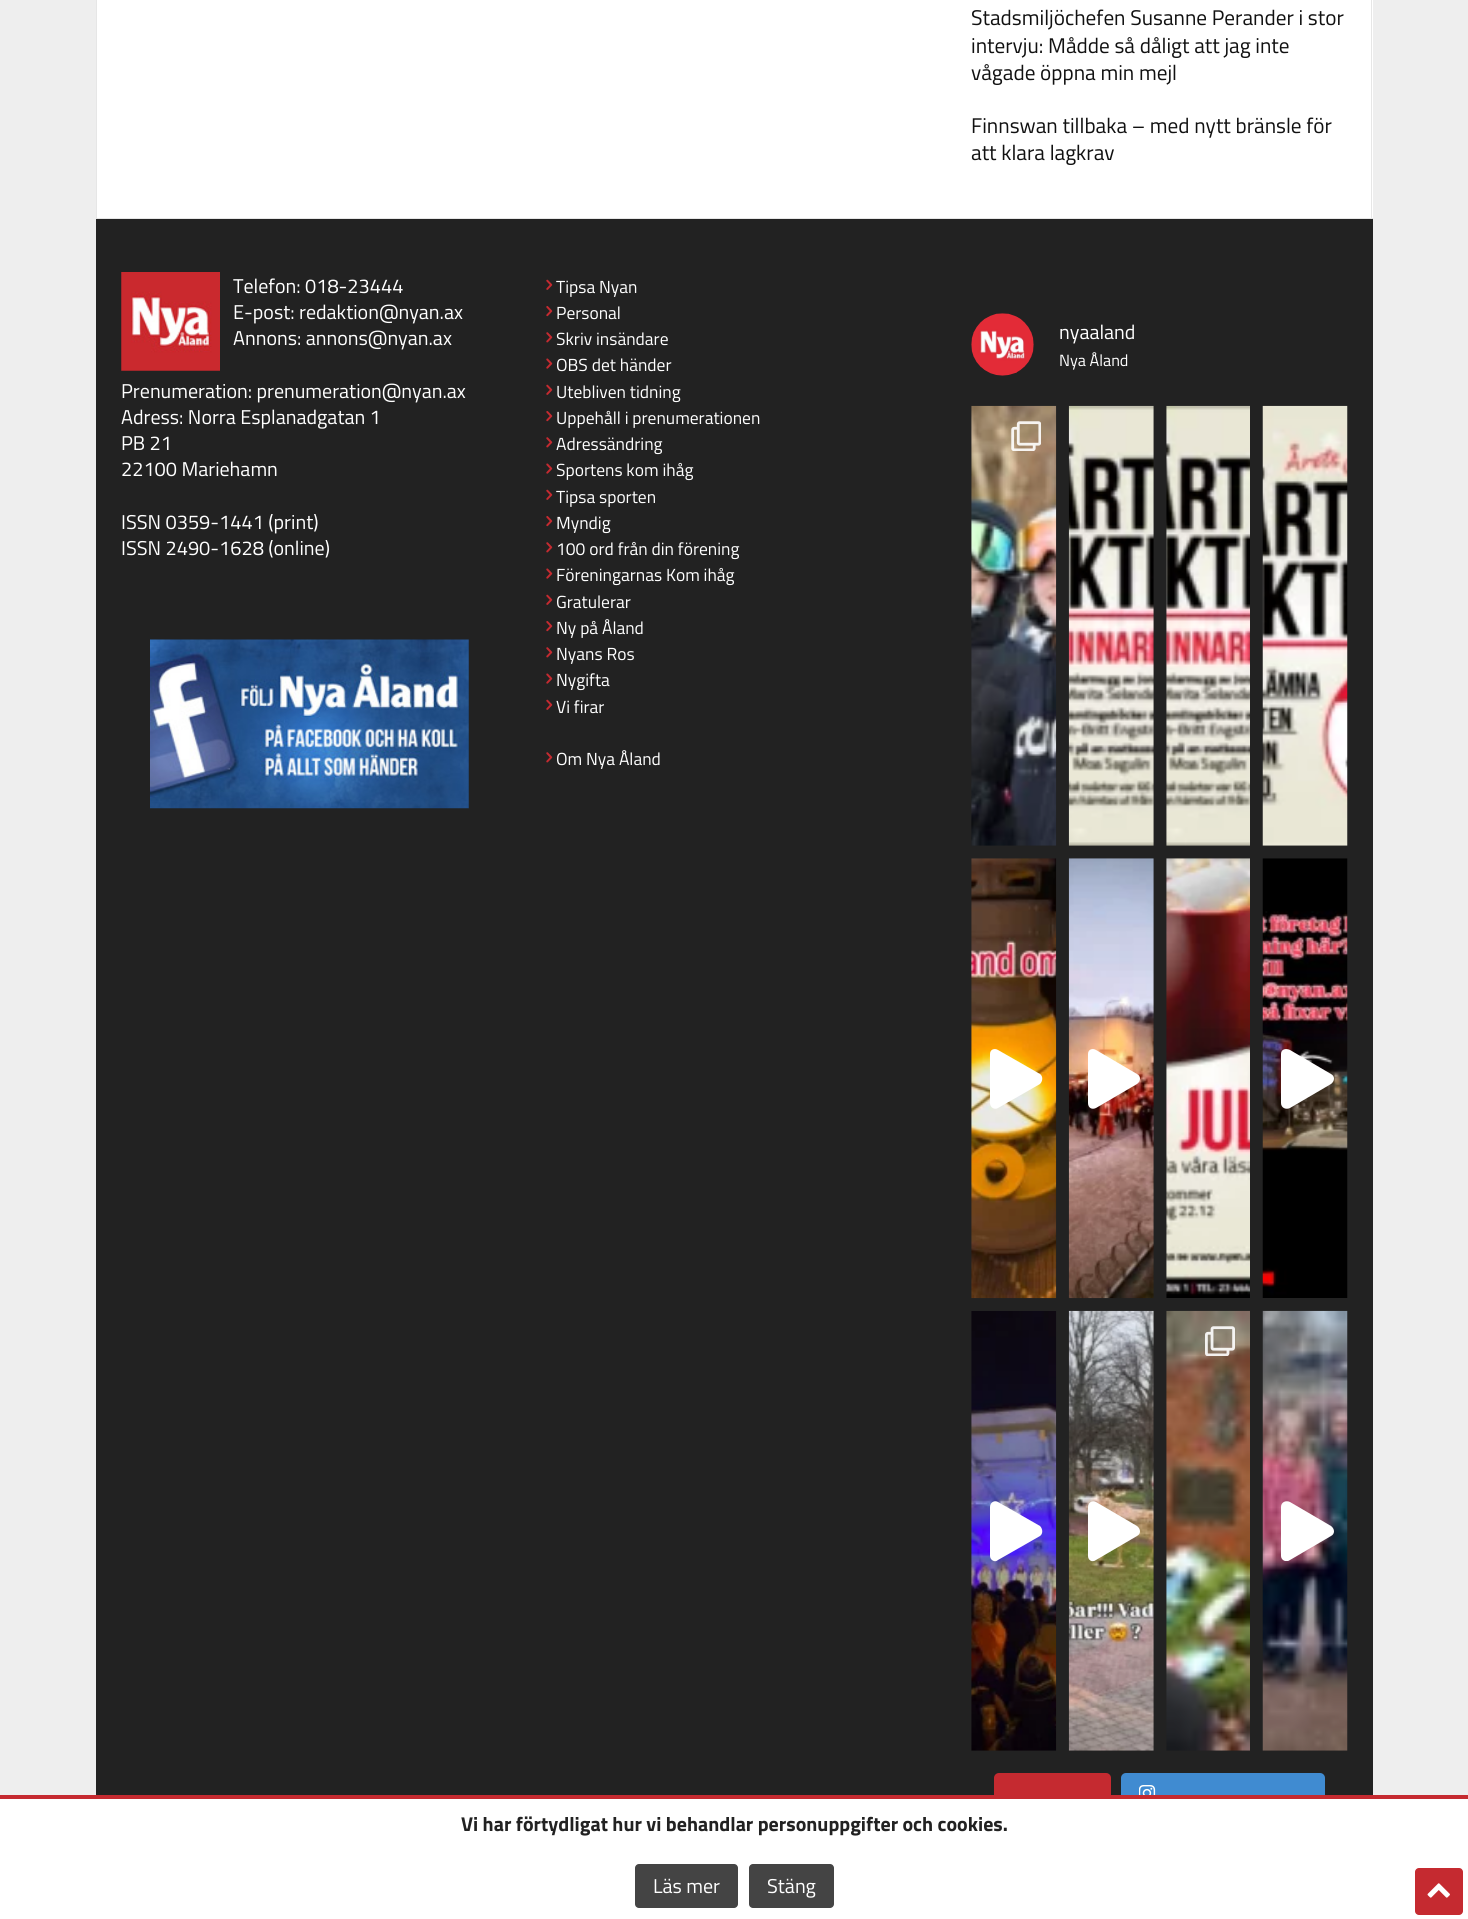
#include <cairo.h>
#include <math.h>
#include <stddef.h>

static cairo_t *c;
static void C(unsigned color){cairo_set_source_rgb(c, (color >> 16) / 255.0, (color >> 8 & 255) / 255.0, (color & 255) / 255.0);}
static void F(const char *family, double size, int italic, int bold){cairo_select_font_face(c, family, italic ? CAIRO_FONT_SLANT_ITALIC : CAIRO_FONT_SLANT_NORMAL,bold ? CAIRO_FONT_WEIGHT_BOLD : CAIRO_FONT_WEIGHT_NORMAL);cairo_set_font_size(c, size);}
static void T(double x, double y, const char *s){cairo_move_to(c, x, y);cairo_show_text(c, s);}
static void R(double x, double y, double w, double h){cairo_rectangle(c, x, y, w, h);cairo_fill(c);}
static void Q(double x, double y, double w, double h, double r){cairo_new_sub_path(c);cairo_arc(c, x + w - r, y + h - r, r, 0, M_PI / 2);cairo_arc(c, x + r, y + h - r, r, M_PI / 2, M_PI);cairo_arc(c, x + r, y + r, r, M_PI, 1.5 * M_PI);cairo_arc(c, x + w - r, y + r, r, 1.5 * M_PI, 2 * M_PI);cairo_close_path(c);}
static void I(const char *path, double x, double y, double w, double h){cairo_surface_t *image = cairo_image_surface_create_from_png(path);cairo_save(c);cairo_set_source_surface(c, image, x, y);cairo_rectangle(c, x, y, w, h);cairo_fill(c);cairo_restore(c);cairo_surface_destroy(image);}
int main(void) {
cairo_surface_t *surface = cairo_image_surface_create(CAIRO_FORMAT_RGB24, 1468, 1919);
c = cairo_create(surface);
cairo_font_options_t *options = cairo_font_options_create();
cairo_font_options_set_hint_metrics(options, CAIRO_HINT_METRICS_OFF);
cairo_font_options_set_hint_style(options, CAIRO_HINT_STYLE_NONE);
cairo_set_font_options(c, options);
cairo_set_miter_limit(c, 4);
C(0xeeeeee);
cairo_paint(c);
C(0xffffff);
R(97,0,1276,218);
C(0xe6e6e6);
R(96,218,1277,1);
R(96,0,1,218);
F("Titillium Web",21.25,0,0);
C(0x111111);
T(971,25,"Stadsmiljöchefen Susanne Perander i stor");
T(971,53,"intervju: Mådde så dåligt att jag inte");
T(971,80,"vågade öppna min mejl");
T(971,133,"Finnswan tillbaka – med nytt bränsle för");
T(971,160,"att klara lagkrav");
C(0xe6e6e6);
R(1371,0,1,218);
C(0x222222);
R(96,219,1277,1576);
I("1.png",121,272,99,99);
F("Titillium Web",20,0,0);
C(0xffffff);
T(233,293,"Telefon: 018-23444");
T(233,319,"E-post: redaktion@nyan.ax");
T(233,345,"Annons: annons@nyan.ax");
T(121,398,"Prenumeration: prenumeration@nyan.ax");
T(121,424,"Adress: Norra Esplanadgatan 1");
T(121,450,"PB 21");
T(121,476,"22100 Mariehamn");
T(121,529,"ISSN 0359-1441 (print)");
T(121,555,"ISSN 2490-1628 (online)");
I("2.png",150,639,319,170);
I("3.png",546,279,7,11);
F("Titillium Web",17.5,0,0);
T(556,293,"Tipsa Nyan");
I("4.png",546,306,7,11);
T(556,319,"Personal");
I("5.png",546,332,7,11);
T(556,345,"Skriv insändare");
I("6.png",546,358,7,11);
T(556,371,"OBS det händer");
I("3.png",546,384,7,11);
T(556,398,"Utebliven tidning");
I("4.png",546,411,7,11);
T(556,424,"Uppehåll i prenumerationen");
I("5.png",546,437,7,11);
T(556,450,"Adressändring");
I("6.png",546,463,7,11);
T(556,476,"Sportens kom ihåg");
I("3.png",546,489,7,11);
T(556,503,"Tipsa sporten");
I("4.png",546,516,7,11);
T(556,529,"Myndig");
I("5.png",546,542,7,11);
T(556,555,"100 ord från din förening");
I("6.png",546,568,7,11);
T(556,581,"Föreningarnas Kom ihåg");
I("3.png",546,594,7,11);
T(556,608,"Gratulerar");
I("4.png",546,621,7,11);
T(556,634,"Ny på Åland");
I("5.png",546,647,7,11);
T(556,660,"Nyans Ros");
I("6.png",546,673,7,11);
T(556,686,"Nygifta");
I("3.png",546,699,7,11);
T(556,713,"Vi firar");
I("5.png",546,752,7,11);
T(556,765,"Om Nya Åland");
I("7.png",971,313,63,63);
F("Titillium Web",20,0,0);
T(1059,339,"nyaaland");
F("Titillium Web",16.25,0,0);
T(1059,366,"Nya Åland");
I("8.png",971,405,86,441);
I("9.png",1011,421,30,30);
I("10.png",1068,405,86,441);
I("11.png",1166,405,84,441);
I("12.png",1262,405,86,441);
I("13.png",971,858,86,441);
cairo_new_path(c);
cairo_move_to(c,1040,1074);
cairo_line_to(c,998,1050);
cairo_curve_to(c,995,1048,990,1049,990,1054);
cairo_line_to(c,990,1103);
cairo_curve_to(c,990,1108,995,1110,998,1108);
cairo_line_to(c,1040,1084);
cairo_curve_to(c,1043,1081,1043,1076,1040,1074);
cairo_close_path(c);
cairo_fill(c);
I("14.png",1068,858,86,441);
cairo_new_path(c);
cairo_move_to(c,1137,1074);
cairo_line_to(c,1096,1050);
cairo_curve_to(c,1093,1048,1088,1049,1088,1054);
cairo_line_to(c,1088,1103);
cairo_curve_to(c,1088,1108,1092,1110,1096,1108);
cairo_line_to(c,1137,1084);
cairo_curve_to(c,1141,1081,1141,1076,1137,1074);
cairo_close_path(c);
cairo_fill(c);
I("15.png",1166,858,84,440);
I("16.png",1262,858,86,440);
cairo_new_path(c);
cairo_move_to(c,1331,1074);
cairo_line_to(c,1290,1050);
cairo_curve_to(c,1286,1048,1281,1049,1281,1054);
cairo_line_to(c,1281,1103);
cairo_curve_to(c,1281,1108,1286,1110,1290,1108);
cairo_line_to(c,1331,1084);
cairo_curve_to(c,1335,1081,1335,1076,1331,1074);
cairo_close_path(c);
cairo_fill(c);
I("17.png",971,1311,86,440);
cairo_new_path(c);
cairo_move_to(c,1040,1526);
cairo_line_to(c,998,1502);
cairo_curve_to(c,995,1500,990,1502,990,1507);
cairo_line_to(c,990,1556);
cairo_curve_to(c,990,1560,995,1563,998,1560);
cairo_line_to(c,1040,1536);
cairo_curve_to(c,1043,1534,1043,1529,1040,1526);
cairo_close_path(c);
cairo_fill(c);
I("18.png",1068,1310,86,441);
cairo_new_path(c);
cairo_move_to(c,1137,1526);
cairo_line_to(c,1096,1502);
cairo_curve_to(c,1093,1500,1088,1502,1088,1507);
cairo_line_to(c,1088,1556);
cairo_curve_to(c,1088,1560,1092,1563,1096,1560);
cairo_line_to(c,1137,1536);
cairo_curve_to(c,1141,1534,1141,1529,1137,1526);
cairo_close_path(c);
cairo_fill(c);
I("19.png",1166,1310,84,441);
I("20.png",1205,1326,30,30);
I("21.png",1262,1310,86,441);
cairo_save(c);
cairo_rectangle(c,1281,1501,53,60);
cairo_clip(c);
cairo_new_path(c);
cairo_move_to(c,1331,1526);
cairo_line_to(c,1290,1502);
cairo_curve_to(c,1286,1500,1281,1502,1281,1507);
cairo_line_to(c,1281,1556);
cairo_curve_to(c,1281,1560,1286,1563,1290,1560);
cairo_line_to(c,1331,1536);
cairo_curve_to(c,1335,1534,1335,1529,1331,1526);
cairo_close_path(c);
cairo_fill(c);
cairo_restore(c);
C(0xc52a30);
Q(994,1773,117,42,5);
cairo_fill(c);
C(0x408bd1);
Q(1121,1773,204,42,5);
cairo_fill(c);
I("22.png",1139,1785,17,10);
C(0xffffff);
R(0,1799,1468,120);
C(0xc52a30);
R(0,1795,1468,4);
F("Titillium Web",20,0,1);
C(0x222222);
T(461,1831,"Vi har förtydligat hur vi behandlar personuppgifter och cookies.");
C(0x444444);
Q(635,1864,103,44,4);
cairo_fill(c);
F("Titillium Web",20,0,0);
C(0xffffff);
T(653,1893,"Läs mer");
C(0x444444);
Q(749,1864,85,44,4);
cairo_fill(c);
C(0xffffff);
T(767,1893,"Stäng");
C(0xc52a30);
Q(1415,1868,48,47,4);
cairo_fill(c);
I("23.png",1427,1883,23,15);
cairo_surface_write_to_png(surface, "o.png");
cairo_font_options_destroy(options);
cairo_destroy(c);
cairo_surface_destroy(surface);
return 0;
}
